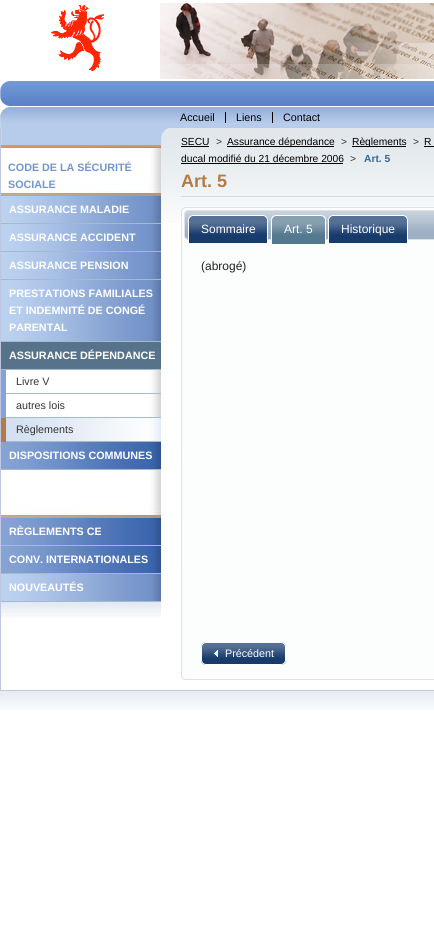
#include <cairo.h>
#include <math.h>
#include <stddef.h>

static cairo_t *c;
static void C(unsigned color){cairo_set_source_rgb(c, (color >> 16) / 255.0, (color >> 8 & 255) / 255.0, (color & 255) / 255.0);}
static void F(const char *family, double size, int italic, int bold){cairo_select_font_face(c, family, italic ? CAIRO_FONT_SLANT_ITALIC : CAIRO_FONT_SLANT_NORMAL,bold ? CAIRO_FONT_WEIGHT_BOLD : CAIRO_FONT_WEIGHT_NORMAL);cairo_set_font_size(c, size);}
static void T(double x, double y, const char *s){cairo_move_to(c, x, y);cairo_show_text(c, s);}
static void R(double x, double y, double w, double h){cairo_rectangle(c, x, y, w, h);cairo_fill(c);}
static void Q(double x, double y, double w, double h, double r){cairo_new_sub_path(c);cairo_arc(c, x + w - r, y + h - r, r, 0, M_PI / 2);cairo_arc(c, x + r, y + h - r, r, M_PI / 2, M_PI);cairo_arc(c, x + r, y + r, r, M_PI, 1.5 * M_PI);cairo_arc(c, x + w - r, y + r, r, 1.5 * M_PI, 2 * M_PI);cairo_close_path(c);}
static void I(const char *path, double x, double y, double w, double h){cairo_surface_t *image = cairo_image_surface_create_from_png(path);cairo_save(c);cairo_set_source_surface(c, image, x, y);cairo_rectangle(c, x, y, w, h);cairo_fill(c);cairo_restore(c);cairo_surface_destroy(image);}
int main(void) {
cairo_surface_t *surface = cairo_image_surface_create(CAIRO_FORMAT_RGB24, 434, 945);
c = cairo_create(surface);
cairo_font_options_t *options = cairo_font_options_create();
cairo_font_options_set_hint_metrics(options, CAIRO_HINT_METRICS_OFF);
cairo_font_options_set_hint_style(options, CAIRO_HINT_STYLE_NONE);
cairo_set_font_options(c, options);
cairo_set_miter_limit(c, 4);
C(0xffffff);
cairo_paint(c);
I("1.png",160,3,274,77);
I("2.png",0,3,160,77);
I("3.png",10,81,424,25);
I("4.png",0,81,10,25);
I("5.png",10,107,424,21);
I("6.png",0,107,10,21);
C(0x000000);
R(225,112,1,11);
F("Liberation Sans",10.75,0,0);
T(180,121,"Accueil");
R(272,112,1,11);
T(236,121,"Liens");
T(283,121,"Contact");
I("7.png",161,128,273,95);
C(0xbfc6e2);
R(0,128,1,562);
I("8.png",1,128,160,20);
I("9.png",161,128,9,20);
I("10.png",1,602,160,16);
I("11.png",1,148,160,48);
F("Liberation Sans",10.75,0,1);
C(0x7395cd);
T(8,171,"CODE DE LA SÉCURITÉ");
T(8,188,"SOCIALE");
I("12.png",1,196,160,27);
C(0xa5bbc9);
R(1,223,160,1);
C(0xffffff);
T(9,213,"ASSURANCE MALADIE");
I("12.png",1,224,160,27);
C(0xa5bbc9);
R(1,251,160,1);
C(0xffffff);
T(9,241,"ASSURANCE ACCIDENT");
I("12.png",1,252,160,27);
C(0xa5bbc9);
R(1,279,160,1);
C(0xffffff);
T(9,269,"ASSURANCE PENSION");
I("13.png",1,280,160,61);
C(0xa5bbc9);
R(1,341,160,1);
C(0xffffff);
T(9,297,"PRESTATIONS FAMILIALES");
T(9,314,"ET INDEMNITÉ DE CONGÉ");
T(9,331,"PARENTAL");
I("14.png",1,342,160,27);
C(0xa5bbc9);
R(1,369,160,1);
C(0xffffff);
T(9,359,"ASSURANCE DÉPENDANCE");
C(0x87a2d5);
R(1,370,5,48);
I("15.png",6,370,155,23);
C(0xa5bbc9);
R(6,393,155,1);
F("Liberation Sans",10.75,0,0);
C(0x343434);
T(16,385,"Livre V");
I("15.png",6,394,155,23);
C(0xa5bbc9);
R(6,417,155,1);
C(0x343434);
T(16,409,"autres lois");
C(0xb57b45);
R(1,418,5,24);
I("16.png",6,418,155,23);
C(0xa5bbc9);
R(6,441,155,1);
C(0x343434);
T(16,433,"Règlements");
I("17.png",1,442,160,27);
C(0xa5bbc9);
R(1,469,160,1);
F("Liberation Sans",10.75,0,1);
C(0xffffff);
T(9,459,"DISPOSITIONS COMMUNES");
I("11.png",1,470,160,48);
I("17.png",1,518,160,27);
C(0xa5bbc9);
R(1,545,160,1);
C(0xffffff);
T(9,535,"RÈGLEMENTS CE");
I("17.png",1,546,160,27);
C(0xa5bbc9);
R(1,573,160,1);
C(0xffffff);
T(9,563,"CONV. INTERNATIONALES");
I("12.png",1,574,160,27);
C(0xa5bbc9);
R(1,601,160,1);
C(0xffffff);
T(9,591,"NOUVEAUTÉS");
F("Liberation Sans",10.25,0,0);
C(0x000000);
T(181,145,"SECU");
R(181,146,28,1);
C(0x343434);
T(216,145,">");
C(0x000000);
R(227,146,107,1);
T(227,145,"Assurance dépendance");
C(0x343434);
T(341,145,">");
C(0x000000);
R(352,146,54,1);
T(352,145,"Règlements");
C(0x343434);
T(413,145,">");
C(0x000000);
T(424,145,"R");
R(424,146,10,1);
T(181,162,"ducal modifié du 21 décembre 2006");
R(181,163,162,1);
C(0x343434);
T(350,162,">");
F("Liberation Sans",10.25,0,1);
C(0x346794);
T(364,162,"Art. 5");
C(0xd2d9eb);
R(181,196,253,1);
F("Liberation Sans",18,0,1);
C(0xb57b45);
T(181,187,"Art. 5");
C(0xfcfdfd);
Q(181.5,207.5,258,472,4.5);
cairo_fill_preserve(c);
C(0xdde1ed);
cairo_set_line_width(c,1);
cairo_stroke(c);
I("18.png",184,210,250,30);
Q(184.5,210.5,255,29,4.5);
cairo_stroke(c);
I("19.png",188,215,80,28);
C(0xffffff);
cairo_set_fill_rule(c,CAIRO_FILL_RULE_EVEN_ODD);
cairo_new_path(c);
cairo_move_to(c,193,215);
cairo_line_to(c,263,215);
cairo_curve_to(c,266,215,268,217,268,220);
cairo_line_to(c,268,243);
cairo_line_to(c,188,243);
cairo_line_to(c,188,220);
cairo_curve_to(c,188,217,190,215,193,215);
cairo_close_path(c);
cairo_move_to(c,193,216);
cairo_line_to(c,263,216);
cairo_curve_to(c,265,216,267,218,267,220);
cairo_line_to(c,267,243);
cairo_line_to(c,189,243);
cairo_line_to(c,189,220);
cairo_curve_to(c,189,218,191,216,193,216);
cairo_close_path(c);
cairo_fill(c);
F("Liberation Sans",12,0,0);
T(201,233,"Sommaire");
I("20.png",271,215,55,29);
cairo_new_path(c);
cairo_move_to(c,276,215);
cairo_line_to(c,321,215);
cairo_curve_to(c,324,215,326,217,326,220);
cairo_line_to(c,326,244);
cairo_line_to(c,271,244);
cairo_line_to(c,271,220);
cairo_curve_to(c,271,217,273,215,276,215);
cairo_close_path(c);
cairo_move_to(c,276,216);
cairo_line_to(c,321,216);
cairo_curve_to(c,323,216,325,218,325,220);
cairo_line_to(c,325,244);
cairo_line_to(c,272,244);
cairo_line_to(c,272,220);
cairo_curve_to(c,272,218,274,216,276,216);
cairo_close_path(c);
cairo_fill(c);
T(284,233,"Art. 5");
I("19.png",328,215,80,28);
cairo_new_path(c);
cairo_move_to(c,333,215);
cairo_line_to(c,403,215);
cairo_curve_to(c,406,215,408,217,408,220);
cairo_line_to(c,408,243);
cairo_line_to(c,328,243);
cairo_line_to(c,328,220);
cairo_curve_to(c,328,217,330,215,333,215);
cairo_close_path(c);
cairo_move_to(c,333,216);
cairo_line_to(c,403,216);
cairo_curve_to(c,405,216,407,218,407,220);
cairo_line_to(c,407,243);
cairo_line_to(c,329,243);
cairo_line_to(c,329,220);
cairo_curve_to(c,329,218,331,216,333,216);
cairo_close_path(c);
cairo_fill(c);
T(341,233,"Historique");
C(0x222222);
T(201,270,"(abrogé)");
I("21.png",201,642,85,23);
Q(201.5,642.5,84,22,4.5);
C(0xffffff);
cairo_stroke(c);
I("22.png",214,650,4,7);
F("Liberation Sans",10.75,0,0);
T(225,657,"Précédent");
I("23.png",0,690,434,20);
cairo_surface_write_to_png(surface, "o.png");
cairo_font_options_destroy(options);
cairo_destroy(c);
cairo_surface_destroy(surface);
return 0;
}
